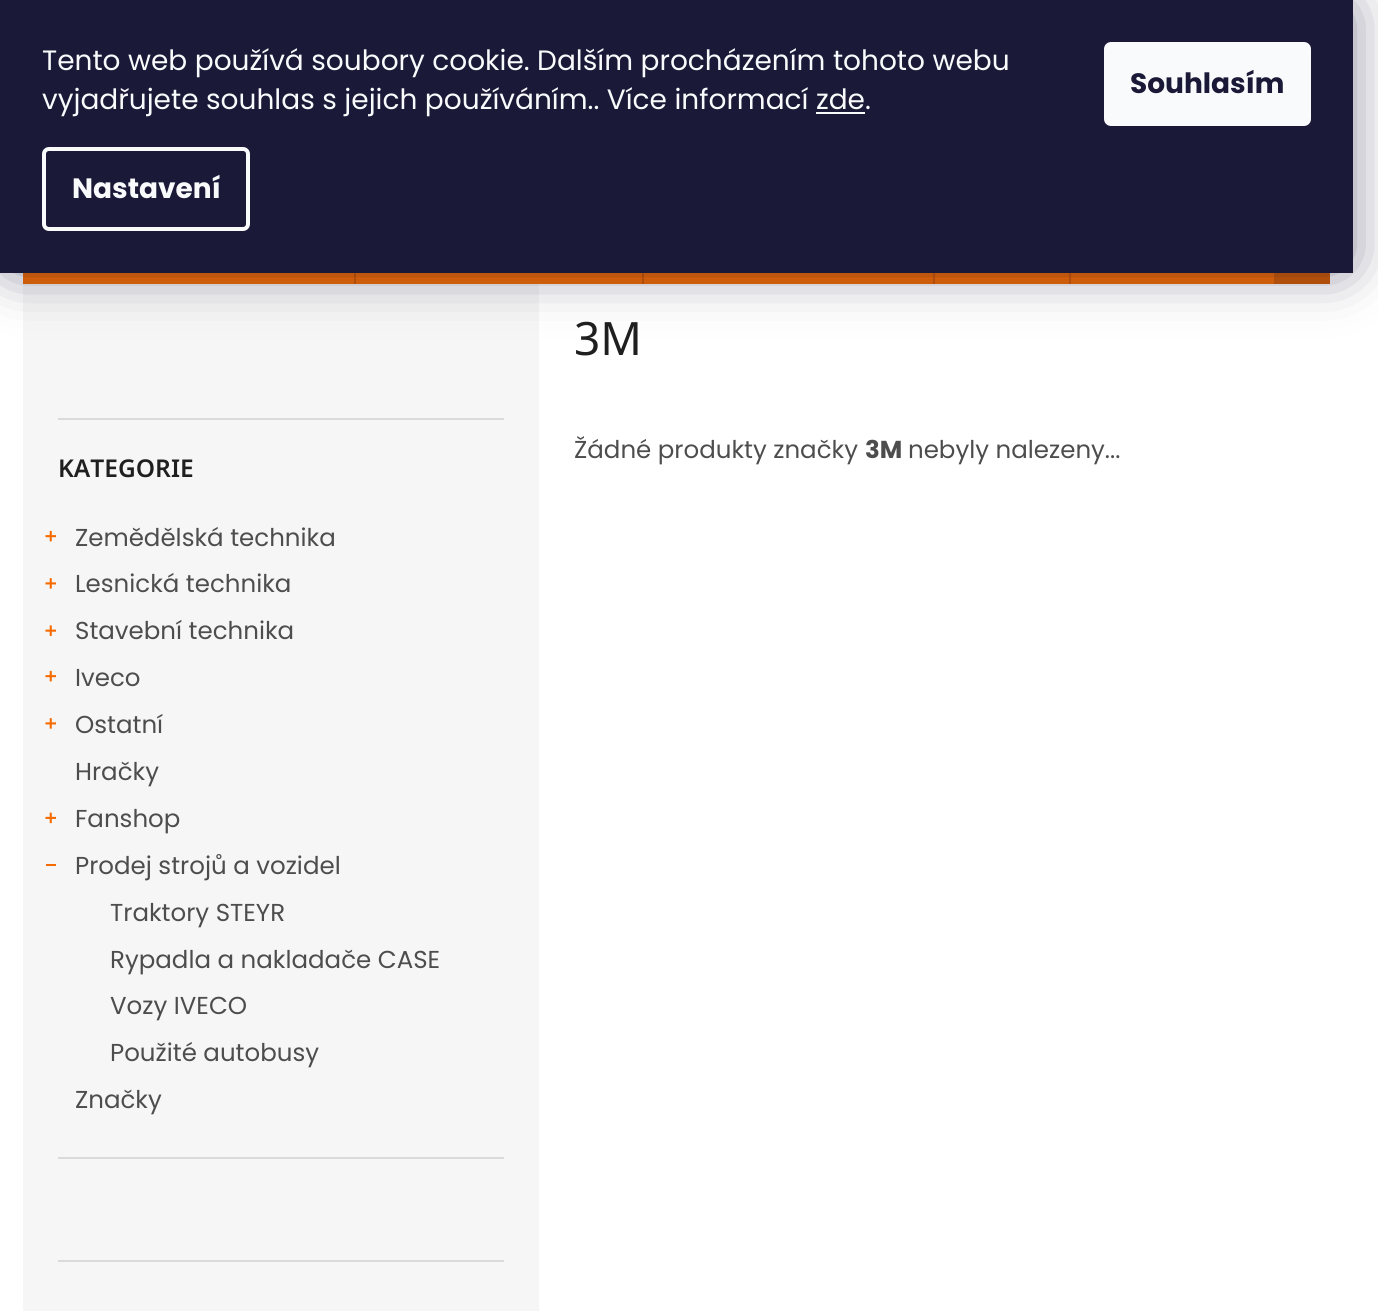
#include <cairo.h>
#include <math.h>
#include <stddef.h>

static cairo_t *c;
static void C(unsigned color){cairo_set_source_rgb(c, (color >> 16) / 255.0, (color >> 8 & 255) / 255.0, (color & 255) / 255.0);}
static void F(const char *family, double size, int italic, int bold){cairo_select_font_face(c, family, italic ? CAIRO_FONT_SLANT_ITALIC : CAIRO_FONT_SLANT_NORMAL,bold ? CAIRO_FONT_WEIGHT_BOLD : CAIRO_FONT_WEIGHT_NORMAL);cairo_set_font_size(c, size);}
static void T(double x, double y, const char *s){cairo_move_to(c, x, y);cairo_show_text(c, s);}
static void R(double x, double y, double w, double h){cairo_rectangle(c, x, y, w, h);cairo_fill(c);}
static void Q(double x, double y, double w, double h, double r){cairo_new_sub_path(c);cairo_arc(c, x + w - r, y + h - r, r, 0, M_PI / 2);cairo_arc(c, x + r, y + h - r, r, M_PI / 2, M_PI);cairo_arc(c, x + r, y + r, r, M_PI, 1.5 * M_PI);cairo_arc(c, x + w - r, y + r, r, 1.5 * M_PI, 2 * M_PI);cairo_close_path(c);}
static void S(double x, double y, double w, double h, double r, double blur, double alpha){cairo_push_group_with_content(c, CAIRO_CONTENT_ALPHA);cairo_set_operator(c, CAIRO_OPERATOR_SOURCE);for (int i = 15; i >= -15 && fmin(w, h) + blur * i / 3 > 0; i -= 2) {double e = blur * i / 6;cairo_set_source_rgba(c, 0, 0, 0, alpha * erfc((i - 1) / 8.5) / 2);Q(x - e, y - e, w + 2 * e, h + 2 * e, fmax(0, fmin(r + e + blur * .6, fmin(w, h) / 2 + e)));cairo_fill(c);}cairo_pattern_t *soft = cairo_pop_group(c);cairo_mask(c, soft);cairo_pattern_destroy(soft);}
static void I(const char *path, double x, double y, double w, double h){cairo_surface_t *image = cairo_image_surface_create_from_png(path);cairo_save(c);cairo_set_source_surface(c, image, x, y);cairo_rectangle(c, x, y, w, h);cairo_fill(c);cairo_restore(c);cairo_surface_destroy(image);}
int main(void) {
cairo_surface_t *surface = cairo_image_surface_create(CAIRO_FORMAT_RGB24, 1378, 1311);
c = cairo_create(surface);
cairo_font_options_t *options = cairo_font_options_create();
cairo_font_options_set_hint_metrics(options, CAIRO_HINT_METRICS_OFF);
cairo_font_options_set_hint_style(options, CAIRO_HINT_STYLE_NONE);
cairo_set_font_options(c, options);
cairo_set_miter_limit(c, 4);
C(0xffffff);
cairo_paint(c);
C(0x1a1937);
R(0,0,1353,273);
C(0xf56b00);
R(23,273,1251,11);
C(0xd15b00);
R(354,273,2,11);
R(642,273,2,11);
R(933,273,2,11);
R(1069,273,2,11);
R(1274,273,56,11);
C(0xf6f6f6);
R(23,284,516,1027);
cairo_save(c);
cairo_set_fill_rule(c,CAIRO_FILL_RULE_EVEN_ODD);
cairo_new_path(c);
cairo_move_to(c,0,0);
cairo_line_to(c,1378,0);
cairo_line_to(c,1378,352);
cairo_line_to(c,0,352);
cairo_close_path(c);
cairo_move_to(c,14,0);
cairo_line_to(c,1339,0);
cairo_curve_to(c,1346.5,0,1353,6.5,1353,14);
cairo_line_to(c,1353,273);
cairo_line_to(c,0,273);
cairo_line_to(c,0,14);
cairo_curve_to(c,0,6.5,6.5,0,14,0);
cairo_close_path(c);
cairo_clip(c);
C(0x1b1939);
S(0,0,1353,273,14,26,.5);
cairo_restore(c);
F("Poppins",28,0,0);
C(0xf8fafb);
T(42,70,"Tento web používá soubory cookie. Dalším procházením tohoto webu");
T(42,109,"vyjadřujete souhlas s jejich používáním.. Více informací zde.");
R(816,112,49,2);
Q(44,149,204,80,5);
cairo_set_line_width(c,4);
cairo_stroke(c);
F("Poppins",28,0,1);
T(72,198,"Nastavení");
Q(1104,42,207,84,7);
cairo_fill(c);
C(0x1a1937);
T(1130,93,"Souhlasím");
F("Noto Sans",46,0,0);
C(0x1f1f1f);
T(574,355,"3M");
F("Poppins",24.5,0,0);
C(0x4d4d4d);
T(574,458,"Žádné produkty značky");
F("Poppins",24.5,0,1);
T(865,458,"3M");
F("Poppins",24.5,0,0);
T(908,458,"nebyly nalezeny...");
C(0xdadada);
R(58,418,446,2);
R(58,1157,446,2);
F("Noto Sans SemiBold",24.5,0,0);
C(0x1f1f1f);
T(58,477,"KATEGORIE");
I("1.png",45,530,11,12);
F("Poppins",24.5,0,0);
C(0x4d4d4d);
T(75,546,"Zemědělská technika");
I("2.png",45,578,11,11);
T(75,592,"Lesnická technika");
I("3.png",45,625,11,11);
T(75,639,"Stavební technika");
I("1.png",45,670,11,12);
T(75,686,"Iveco");
I("2.png",45,718,11,11);
T(75,733,"Ostatní");
T(75,780,"Hračky");
I("4.png",45,812,11,12);
T(75,827,"Fanshop");
C(0xf56b00);
R(46,864,10,2);
C(0x4d4d4d);
T(75,874,"Prodej strojů a vozidel");
T(110,921,"Traktory STEYR");
T(110,968,"Rypadla a nakladače CASE");
T(110,1014,"Vozy IVECO");
T(110,1061,"Použité autobusy");
T(75,1108,"Značky");
C(0xdadada);
R(58,1260,446,2);
cairo_surface_write_to_png(surface, "o.png");
cairo_font_options_destroy(options);
cairo_destroy(c);
cairo_surface_destroy(surface);
return 0;
}
